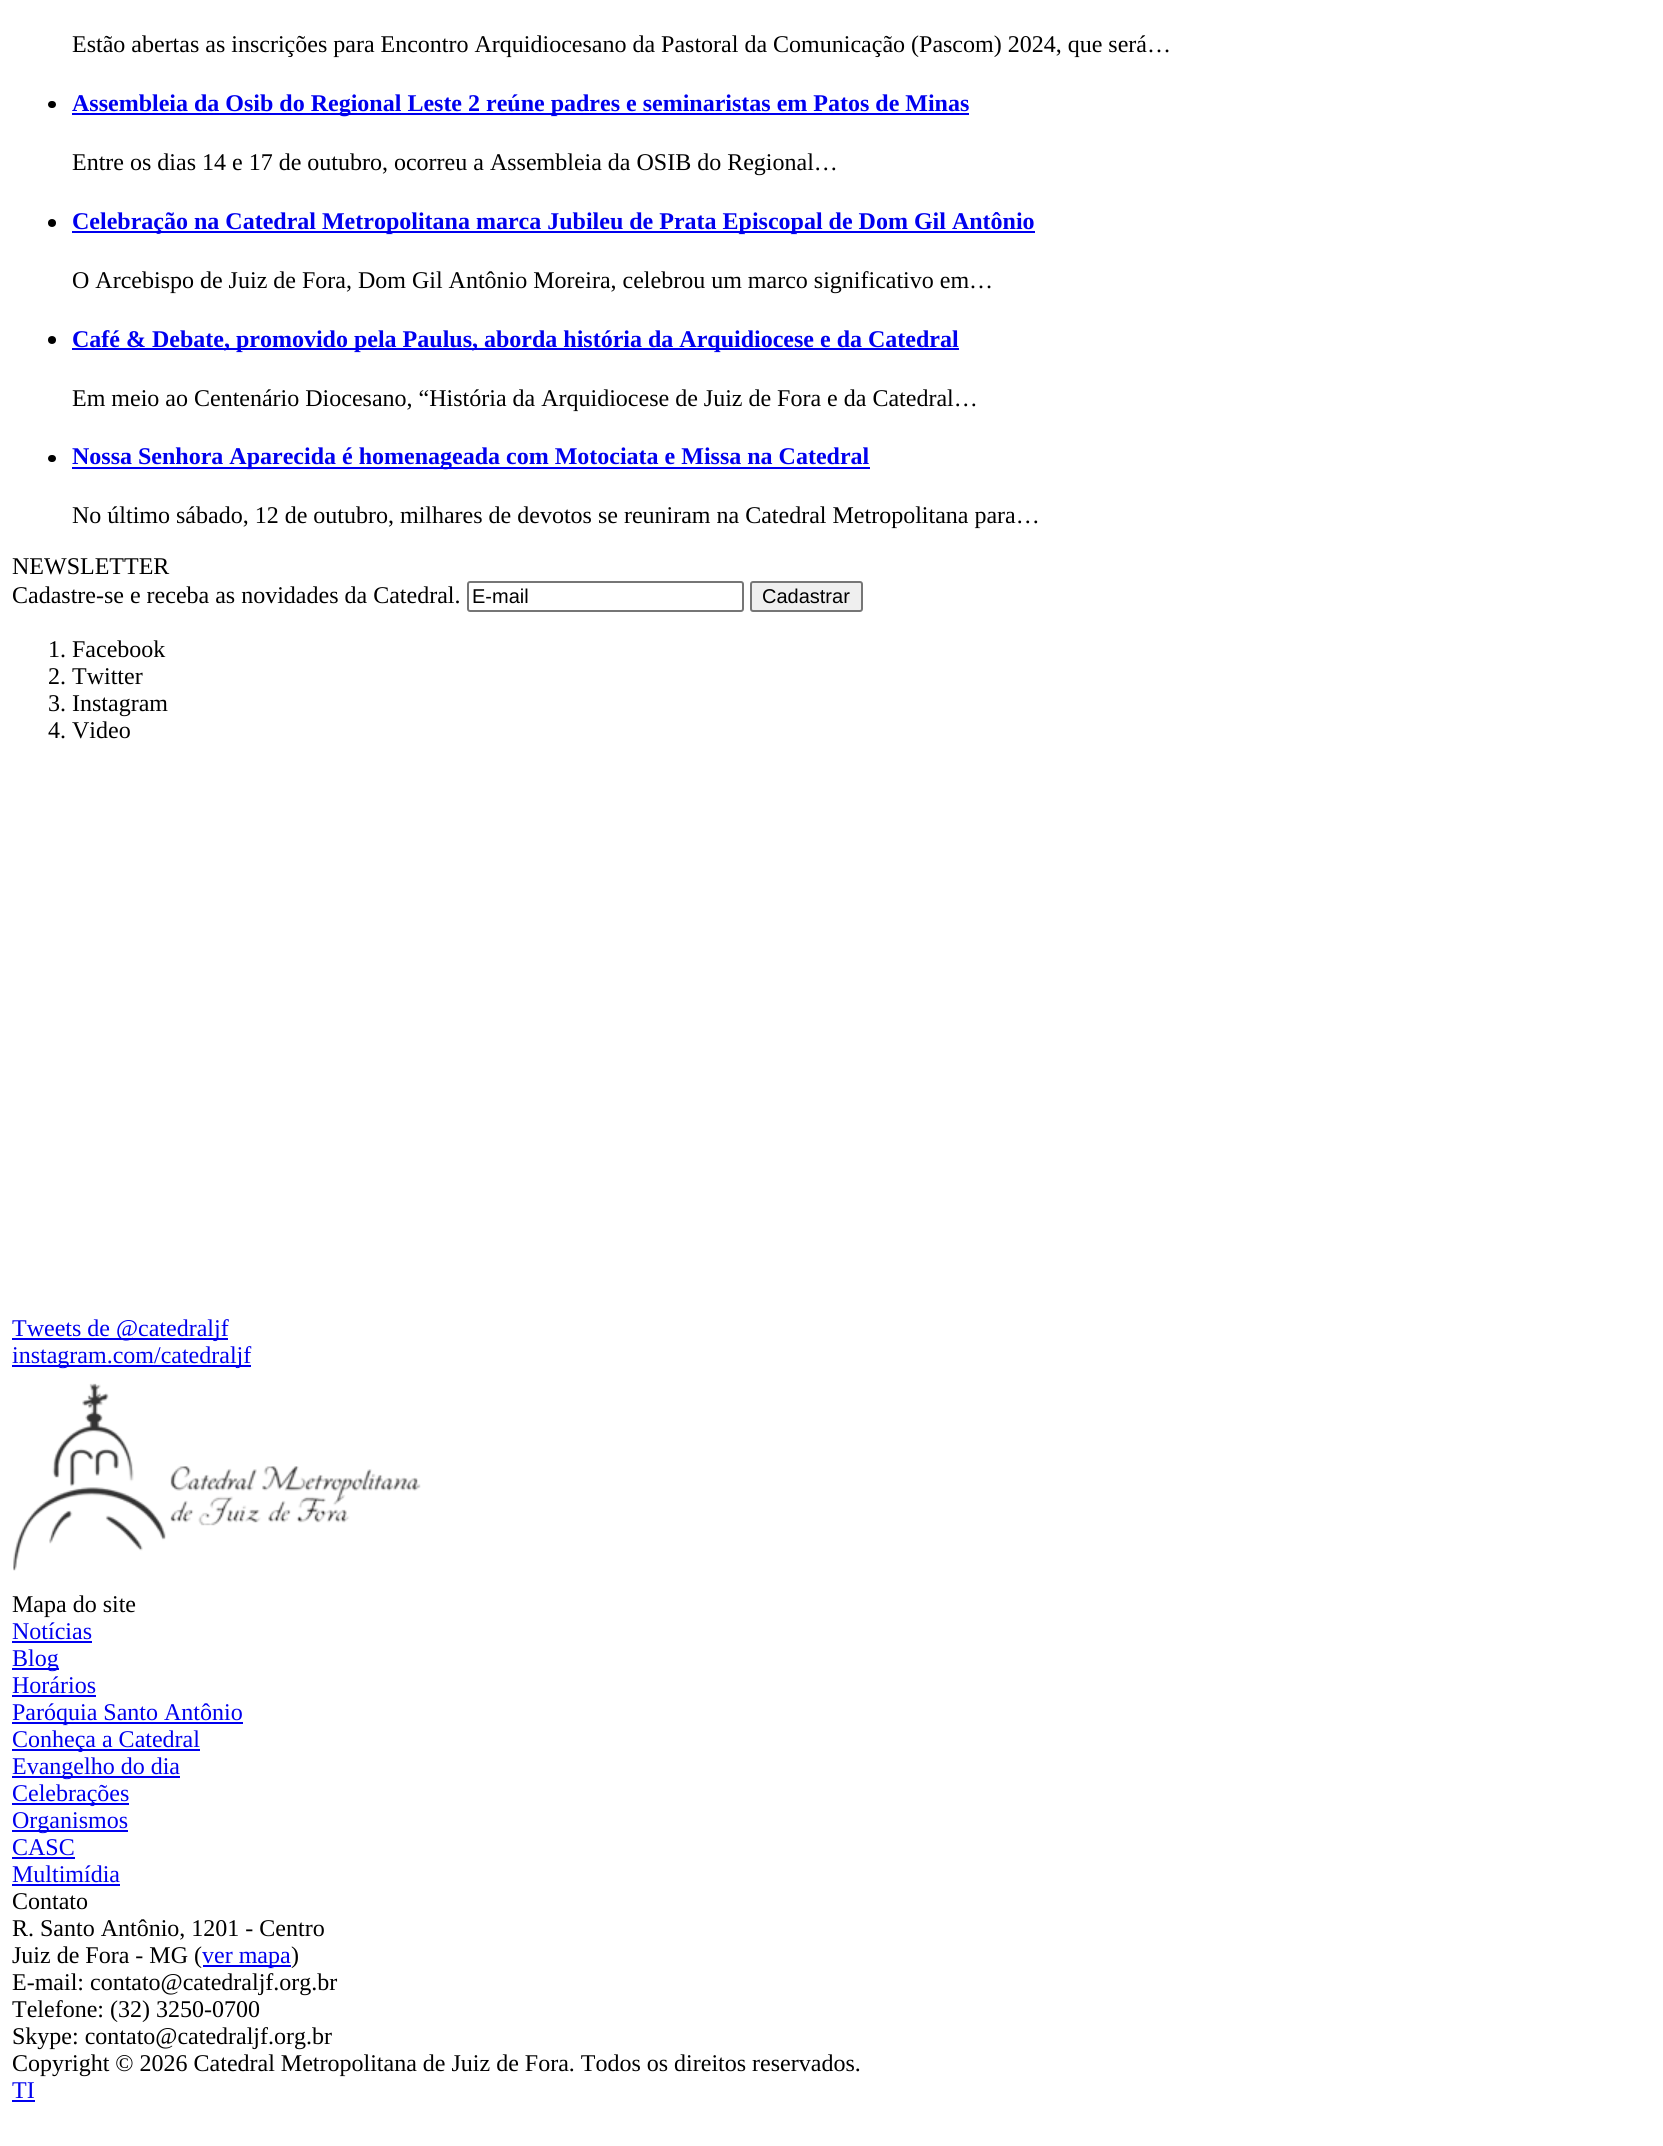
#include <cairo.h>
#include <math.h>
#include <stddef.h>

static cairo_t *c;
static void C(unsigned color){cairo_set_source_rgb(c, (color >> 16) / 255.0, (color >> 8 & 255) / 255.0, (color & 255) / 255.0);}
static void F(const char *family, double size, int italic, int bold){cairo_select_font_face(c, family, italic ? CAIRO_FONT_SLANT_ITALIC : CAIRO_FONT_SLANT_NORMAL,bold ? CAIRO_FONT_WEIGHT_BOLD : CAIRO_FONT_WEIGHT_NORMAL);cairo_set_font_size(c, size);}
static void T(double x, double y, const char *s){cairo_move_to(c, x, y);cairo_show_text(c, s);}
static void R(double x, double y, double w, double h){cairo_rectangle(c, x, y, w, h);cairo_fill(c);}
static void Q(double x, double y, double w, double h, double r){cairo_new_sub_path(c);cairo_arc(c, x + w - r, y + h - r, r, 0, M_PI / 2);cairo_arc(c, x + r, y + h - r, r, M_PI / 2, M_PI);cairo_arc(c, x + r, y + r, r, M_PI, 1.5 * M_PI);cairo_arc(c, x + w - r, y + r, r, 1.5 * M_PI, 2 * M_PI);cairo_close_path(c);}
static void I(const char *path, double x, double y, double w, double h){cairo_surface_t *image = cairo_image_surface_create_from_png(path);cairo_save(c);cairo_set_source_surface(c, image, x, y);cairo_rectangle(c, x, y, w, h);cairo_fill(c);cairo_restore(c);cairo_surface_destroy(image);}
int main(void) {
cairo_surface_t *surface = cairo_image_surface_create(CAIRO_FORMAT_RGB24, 1663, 2146);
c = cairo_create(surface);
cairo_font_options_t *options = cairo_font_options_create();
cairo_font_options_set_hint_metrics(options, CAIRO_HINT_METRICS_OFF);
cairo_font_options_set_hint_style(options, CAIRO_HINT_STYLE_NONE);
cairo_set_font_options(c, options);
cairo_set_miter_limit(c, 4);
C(0xffffff);
cairo_paint(c);
F("Liberation Serif",24,0,0);
C(0x000000);
T(72,52,"Estão abertas as inscrições para Encontro Arquidiocesano da Pastoral da Comunicação (Pascom) 2024, que será…");
Q(48,101,8,7,3.5);
cairo_fill(c);
C(0x0000ee);
R(72,113,897,2);
F("Liberation Serif",24,0,1);
T(72,111,"Assembleia da Osib do Regional Leste 2 reúne padres e seminaristas em Patos de Minas");
F("Liberation Serif",24,0,0);
C(0x000000);
T(72,170,"Entre os dias 14 e 17 de outubro, ocorreu a Assembleia da OSIB do Regional…");
cairo_new_path(c);
cairo_arc(c,52,223,4,0,2 * M_PI);
cairo_fill(c);
C(0x0000ee);
R(72,231,963,2);
F("Liberation Serif",24,0,1);
T(72,229,"Celebração na Catedral Metropolitana marca Jubileu de Prata Episcopal de Dom Gil Antônio");
F("Liberation Serif",24,0,0);
C(0x000000);
T(72,288,"O Arcebispo de Juiz de Fora, Dom Gil Antônio Moreira, celebrou um marco significativo em…");
cairo_new_path(c);
cairo_arc(c,52,340,4,0,2 * M_PI);
cairo_fill(c);
C(0x0000ee);
R(72,348,887,2);
F("Liberation Serif",24,0,1);
T(72,347,"Café & Debate, promovido pela Paulus, aborda história da Arquidiocese e da Catedral");
F("Liberation Serif",24,0,0);
C(0x000000);
T(72,406,"Em meio ao Centenário Diocesano, “História da Arquidiocese de Juiz de Fora e da Catedral…");
Q(48,455,8,7,3.5);
cairo_fill(c);
C(0x0000ee);
R(72,467,798,2);
F("Liberation Serif",24,0,1);
T(72,464,"Nossa Senhora Aparecida é homenageada com Motociata e Missa na Catedral");
F("Liberation Serif",24,0,0);
C(0x000000);
T(72,523,"No último sábado, 12 de outubro, milhares de devotos se reuniram na Catedral Metropolitana para…");
T(12,574,"NEWSLETTER");
T(12,603,"Cadastre-se e receba as novidades da Catedral.");
Q(468,582,275,29,2);
C(0x767676);
cairo_stroke(c);
F("Liberation Sans",20,0,0);
C(0x000000);
T(472,603,"E-mail");
C(0xefefef);
Q(751,582,111,29,2);
cairo_fill_preserve(c);
C(0x767676);
cairo_stroke(c);
C(0x000000);
T(762,603,"Cadastrar");
F("Liberation Serif",24,0,0);
T(48,657,"1. Facebook");
T(48,684,"2. Twitter");
T(48,711,"3. Instagram");
T(48,738,"4. Video");
C(0x0000ee);
R(12,1338,216,2);
T(12,1336,"Tweets de @catedraljf");
R(12,1365,239,2);
T(12,1363,"instagram.com/catedraljf");
I("1.png",13,1383,408,188);
C(0x000000);
T(12,1612,"Mapa do site");
C(0x0000ee);
T(12,1639,"Notícias");
R(12,1641,80,2);
R(12,1668,47,2);
T(12,1666,"Blog");
T(12,1693,"Horários");
R(12,1695,84,2);
R(12,1722,231,2);
T(12,1720,"Paróquia Santo Antônio");
R(12,1749,188,2);
T(12,1747,"Conheça a Catedral");
R(12,1776,168,2);
T(12,1774,"Evangelho do dia");
R(12,1803,117,2);
T(12,1801,"Celebrações");
R(12,1830,116,2);
T(12,1828,"Organismos");
T(12,1855,"CASC");
R(12,1857,63,2);
T(12,1882,"Multimídia");
R(12,1884,108,2);
C(0x000000);
T(12,1909,"Contato");
T(12,1936,"R. Santo Antônio, 1201 - Centro");
T(12,1963,"Juiz de Fora - MG (");
C(0x0000ee);
R(203,1965,88,2);
T(202,1963,"ver mapa");
C(0x000000);
T(291,1963,")");
T(12,1990,"E-mail: contato@catedraljf.org.br");
T(12,2017,"Telefone: (32) 3250-0700");
T(12,2044,"Skype: contato@catedraljf.org.br");
T(12,2071,"Copyright © 2026 Catedral Metropolitana de Juiz de Fora. Todos os direitos reservados.");
C(0x0000ee);
T(12,2098,"TI");
R(12,2100,23,2);
cairo_surface_write_to_png(surface, "o.png");
cairo_font_options_destroy(options);
cairo_destroy(c);
cairo_surface_destroy(surface);
return 0;
}
